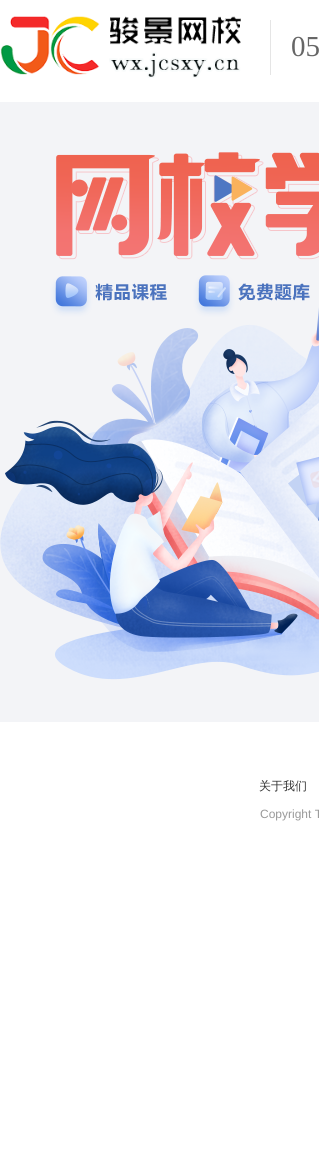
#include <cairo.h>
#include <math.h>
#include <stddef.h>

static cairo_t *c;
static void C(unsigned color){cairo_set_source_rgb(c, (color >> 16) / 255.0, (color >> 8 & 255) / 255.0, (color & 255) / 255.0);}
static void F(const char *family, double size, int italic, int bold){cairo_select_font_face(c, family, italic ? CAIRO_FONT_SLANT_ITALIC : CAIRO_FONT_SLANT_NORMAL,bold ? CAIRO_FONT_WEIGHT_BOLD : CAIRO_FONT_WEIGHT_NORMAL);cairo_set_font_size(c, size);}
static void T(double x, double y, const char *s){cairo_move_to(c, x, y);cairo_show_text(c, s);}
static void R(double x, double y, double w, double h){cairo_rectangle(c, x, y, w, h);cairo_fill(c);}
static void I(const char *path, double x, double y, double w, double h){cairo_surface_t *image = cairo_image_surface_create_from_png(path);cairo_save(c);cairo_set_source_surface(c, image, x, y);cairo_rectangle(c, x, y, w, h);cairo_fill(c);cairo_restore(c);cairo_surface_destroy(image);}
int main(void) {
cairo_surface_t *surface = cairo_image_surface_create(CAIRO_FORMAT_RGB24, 319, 1149);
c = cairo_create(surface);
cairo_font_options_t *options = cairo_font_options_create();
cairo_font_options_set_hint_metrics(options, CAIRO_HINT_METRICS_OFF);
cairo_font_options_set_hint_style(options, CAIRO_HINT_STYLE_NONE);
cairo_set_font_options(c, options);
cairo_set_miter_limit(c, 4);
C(0xffffff);
cairo_paint(c);
I("1.png",0,16,241,62);
C(0xe5e5e5);
R(270,20,1,55);
F("Liberation Serif",29,0,0);
C(0x666666);
T(291,56,"05");
C(0xf3f4f7);
R(0,102,319,620);
I("2.png",0,152,319,528);
F("WenQuanYi Zen Hei Medium",12,0,0);
C(0x333333);
T(259,790,"关于我们");
F("Liberation Sans",12,0,0);
C(0x999999);
T(260,818,"Copyright T");
cairo_surface_write_to_png(surface, "o.png");
cairo_font_options_destroy(options);
cairo_destroy(c);
cairo_surface_destroy(surface);
return 0;
}
